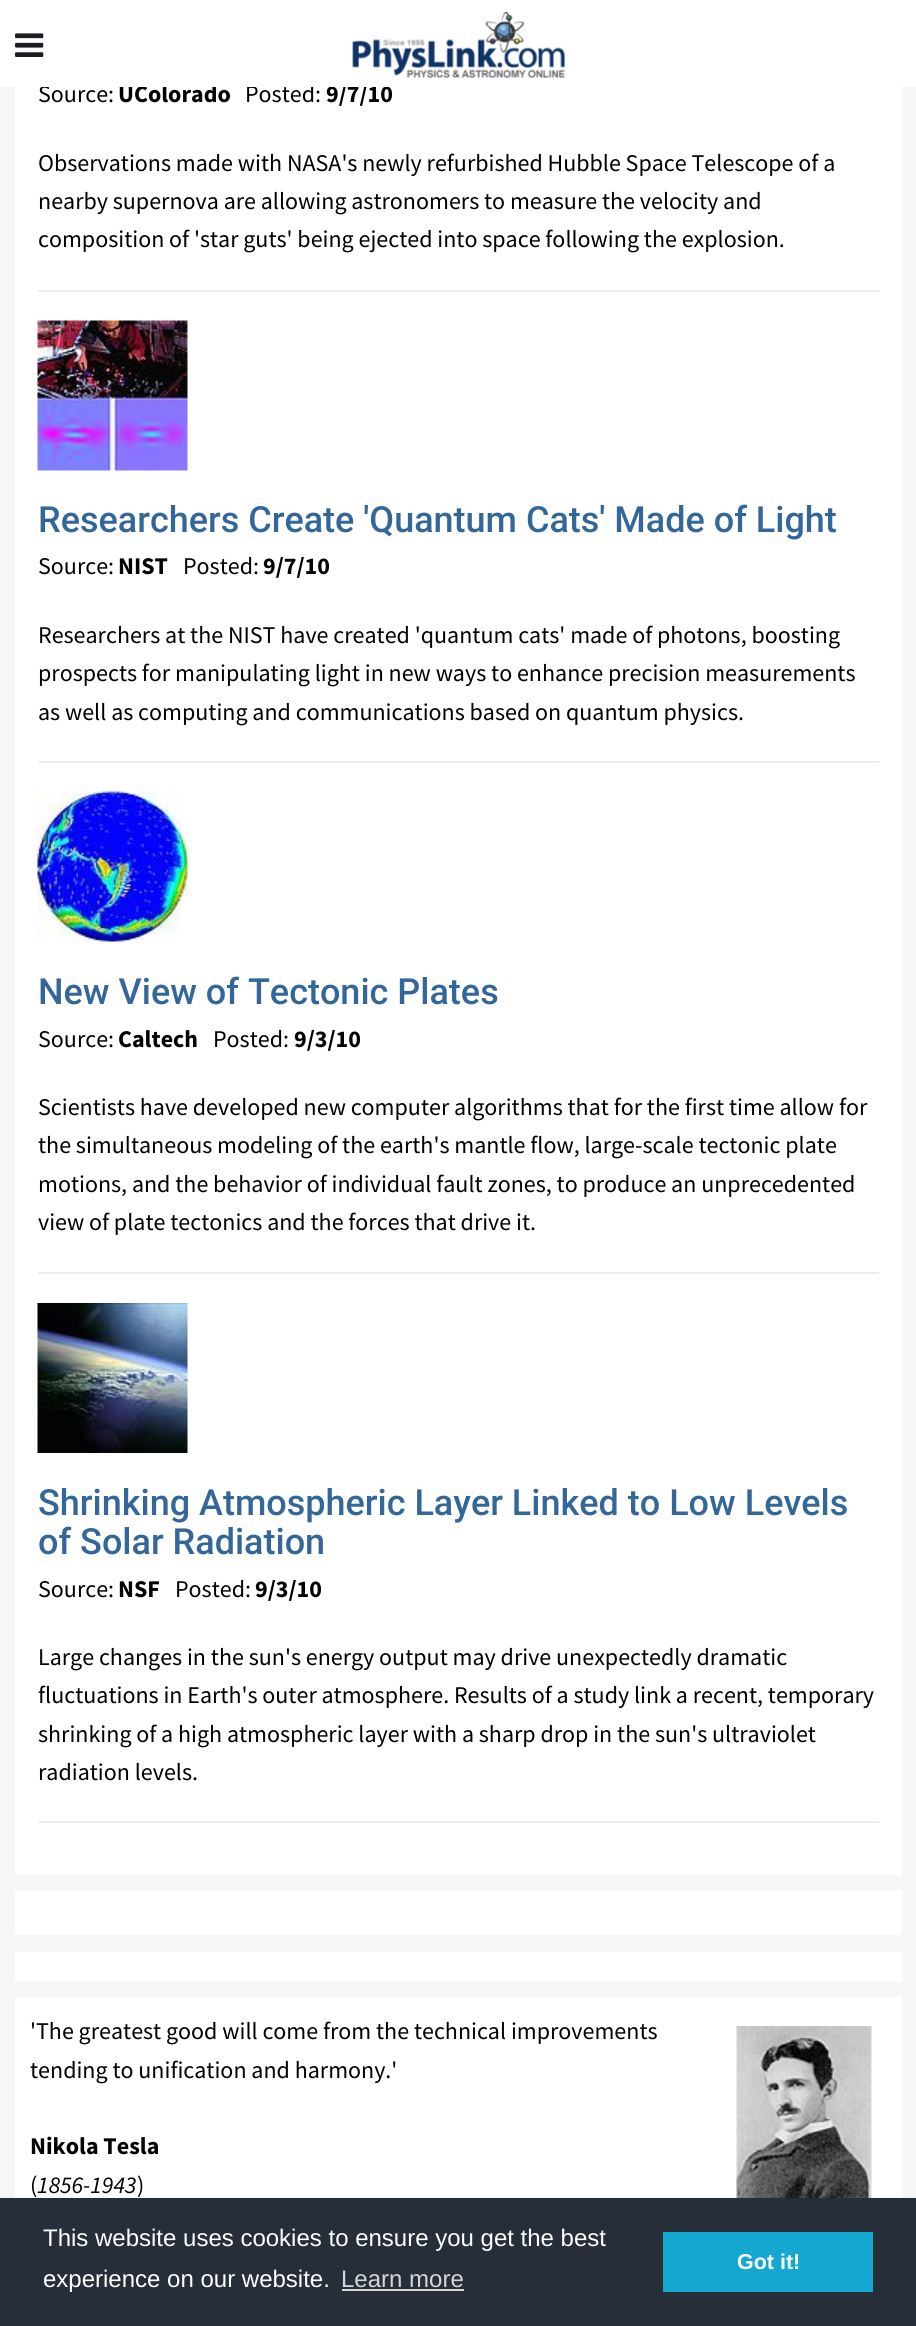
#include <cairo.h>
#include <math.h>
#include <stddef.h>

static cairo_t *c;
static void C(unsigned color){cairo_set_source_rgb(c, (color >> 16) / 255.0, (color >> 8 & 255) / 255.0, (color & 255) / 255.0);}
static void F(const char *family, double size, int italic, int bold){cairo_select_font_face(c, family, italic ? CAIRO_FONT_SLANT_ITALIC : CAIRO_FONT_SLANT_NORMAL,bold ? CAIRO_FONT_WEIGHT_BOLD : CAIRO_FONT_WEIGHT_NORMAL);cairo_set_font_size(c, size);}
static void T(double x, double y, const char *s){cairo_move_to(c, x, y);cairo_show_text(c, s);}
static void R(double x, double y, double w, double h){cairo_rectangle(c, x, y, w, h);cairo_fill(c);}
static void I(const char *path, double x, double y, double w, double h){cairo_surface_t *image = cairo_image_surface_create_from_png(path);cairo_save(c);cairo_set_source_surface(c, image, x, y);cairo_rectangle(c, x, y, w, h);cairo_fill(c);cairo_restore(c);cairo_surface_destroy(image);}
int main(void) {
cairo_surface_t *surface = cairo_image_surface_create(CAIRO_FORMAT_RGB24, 916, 2326);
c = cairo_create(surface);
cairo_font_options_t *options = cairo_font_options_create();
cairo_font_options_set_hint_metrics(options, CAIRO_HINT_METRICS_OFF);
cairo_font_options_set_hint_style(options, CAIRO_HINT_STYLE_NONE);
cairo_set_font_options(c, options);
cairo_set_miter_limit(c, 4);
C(0xf6f6f6);
cairo_paint(c);
C(0xffffff);
R(15,87,887,1788);
F("Source Sans Pro",24,0,0);
C(0x000000);
T(38,102,"Source:");
F("Source Sans Pro",24,0,1);
T(118,102,"UColorado");
F("Source Sans Pro",24,0,0);
T(245,102,"Posted:");
F("Source Sans Pro",24,0,1);
T(326,102,"9/7/10");
C(0xffffff);
R(0,0,916,87);
I("1.png",15,33,29,24);
I("2.png",352,12,213,66);
F("Source Sans Pro",24,0,0);
C(0x000000);
T(38,171,"Observations made with NASA's newly refurbished Hubble Space Telescope of a");
T(38,209,"nearby supernova are allowing astronomers to measure the velocity and");
T(38,247,"composition of 'star guts' being ejected into space following the explosion.");
C(0xeeeeee);
R(38,290,841,2);
I("3.png",37,320,151,151);
F("Roboto Medium",36,0,0);
C(0x336699);
T(38,532,"Researchers Create 'Quantum Cats' Made of Light");
F("Source Sans Pro",24,0,0);
C(0x000000);
T(38,574,"Source:");
F("Source Sans Pro",24,0,1);
T(118,574,"NIST");
F("Source Sans Pro",24,0,0);
T(183,574,"Posted:");
F("Source Sans Pro",24,0,1);
T(263,574,"9/7/10");
F("Source Sans Pro",24,0,0);
T(38,643,"Researchers at the NIST have created 'quantum cats' made of photons, boosting");
T(38,681,"prospects for manipulating light in new ways to enhance precision measurements");
T(38,720,"as well as computing and communications based on quantum physics.");
C(0xeeeeee);
R(38,761,841,2);
I("4.png",37,791,151,151);
F("Roboto Medium",36,0,0);
C(0x336699);
T(38,1004,"New View of Tectonic Plates");
F("Source Sans Pro",24,0,0);
C(0x000000);
T(38,1047,"Source:");
F("Source Sans Pro",24,0,1);
T(118,1047,"Caltech");
F("Source Sans Pro",24,0,0);
T(213,1047,"Posted:");
F("Source Sans Pro",24,0,1);
T(294,1047,"9/3/10");
F("Source Sans Pro",24,0,0);
T(38,1115,"Scientists have developed new computer algorithms that for the first time allow for");
T(38,1153,"the simultaneous modeling of the earth's mantle flow, large-scale tectonic plate");
T(38,1192,"motions, and the behavior of individual fault zones, to produce an unprecedented");
T(38,1230,"view of plate tectonics and the forces that drive it.");
C(0xeeeeee);
R(38,1272,841,2);
I("5.png",37,1303,151,150);
F("Roboto Medium",36,0,0);
C(0x336699);
T(38,1515,"Shrinking Atmospheric Layer Linked to Low Levels");
T(38,1554,"of Solar Radiation");
F("Source Sans Pro",24,0,0);
C(0x000000);
T(38,1597,"Source:");
F("Source Sans Pro",24,0,1);
T(118,1597,"NSF");
F("Source Sans Pro",24,0,0);
T(175,1597,"Posted:");
F("Source Sans Pro",24,0,1);
T(255,1597,"9/3/10");
F("Source Sans Pro",24,0,0);
T(38,1665,"Large changes in the sun's energy output may drive unexpectedly dramatic");
T(38,1703,"fluctuations in Earth's outer atmosphere. Results of a study link a recent, temporary");
T(38,1742,"shrinking of a high atmospheric layer with a sharp drop in the sun's ultraviolet");
T(38,1780,"radiation levels.");
C(0xeeeeee);
R(38,1821,841,2);
C(0xffffff);
R(15,1890,887,45);
R(15,1952,887,30);
R(15,1997,887,201);
C(0x000000);
T(30,2039,"'The greatest good will come from the technical improvements");
I("6.png",736,2026,136,172);
T(30,2078,"tending to unification and harmony.'");
F("Source Sans Pro",24,0,1);
T(30,2154,"Nikola Tesla");
F("Source Sans Pro",24,0,0);
T(30,2193,"(");
F("Source Sans Pro",24,1,0);
T(37,2193,"1856-1943");
F("Source Sans Pro",24,0,0);
T(137,2193,")");
C(0x252e39);
R(0,2198,916,128);
F("Liberation Sans",24,0,0);
C(0xffffff);
T(43,2246,"This website uses cookies to ensure you get the best");
T(43,2287,"experience on our website.");
C(0xd3d5d7);
T(341,2287,"Learn more");
R(342,2289,122,2);
C(0x14a7d0);
R(663,2232,210,60);
F("Liberation Sans",21.5,0,1);
C(0xffffff);
T(737,2269,"Got it!");
cairo_surface_write_to_png(surface, "o.png");
cairo_font_options_destroy(options);
cairo_destroy(c);
cairo_surface_destroy(surface);
return 0;
}
